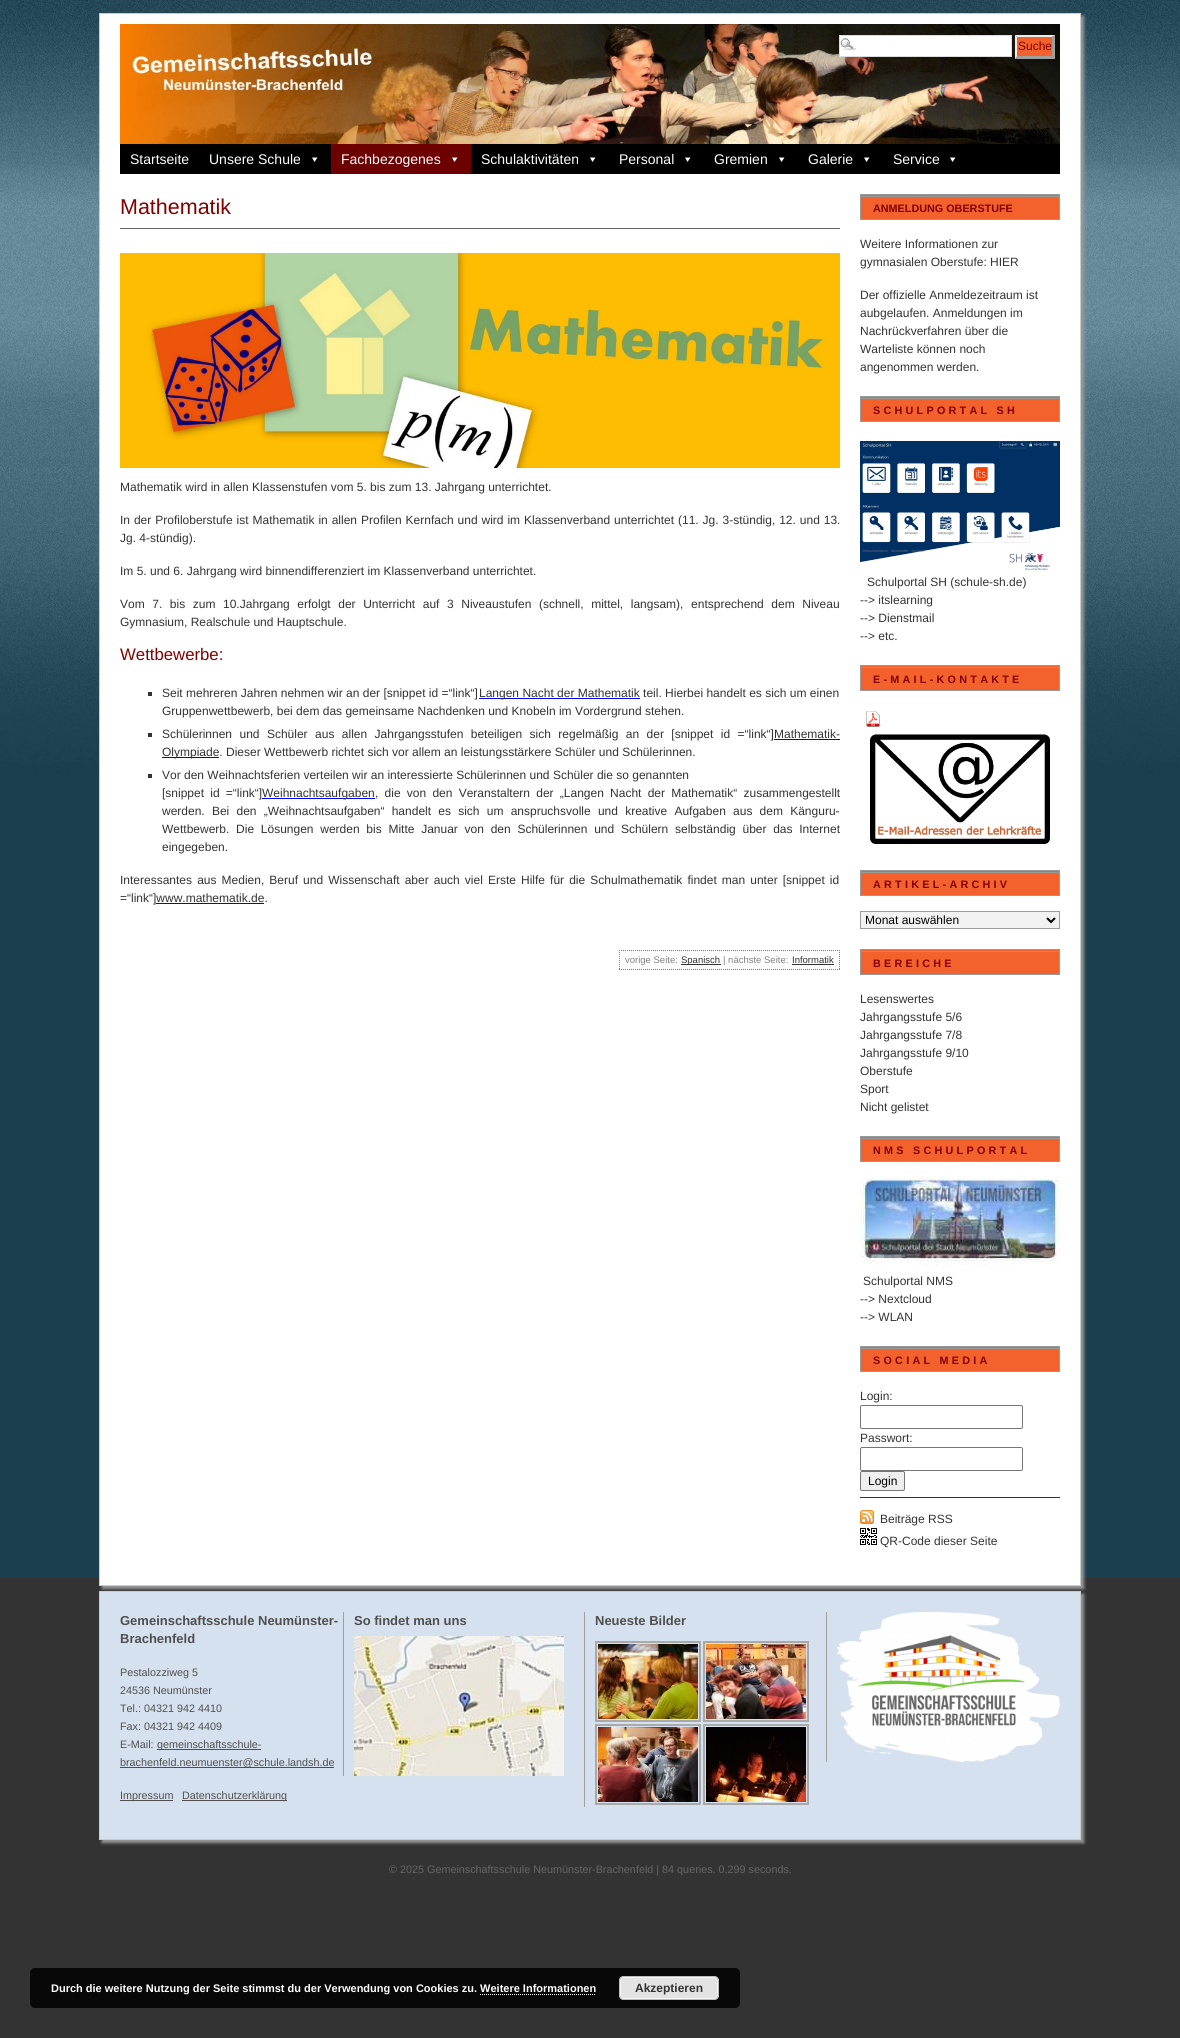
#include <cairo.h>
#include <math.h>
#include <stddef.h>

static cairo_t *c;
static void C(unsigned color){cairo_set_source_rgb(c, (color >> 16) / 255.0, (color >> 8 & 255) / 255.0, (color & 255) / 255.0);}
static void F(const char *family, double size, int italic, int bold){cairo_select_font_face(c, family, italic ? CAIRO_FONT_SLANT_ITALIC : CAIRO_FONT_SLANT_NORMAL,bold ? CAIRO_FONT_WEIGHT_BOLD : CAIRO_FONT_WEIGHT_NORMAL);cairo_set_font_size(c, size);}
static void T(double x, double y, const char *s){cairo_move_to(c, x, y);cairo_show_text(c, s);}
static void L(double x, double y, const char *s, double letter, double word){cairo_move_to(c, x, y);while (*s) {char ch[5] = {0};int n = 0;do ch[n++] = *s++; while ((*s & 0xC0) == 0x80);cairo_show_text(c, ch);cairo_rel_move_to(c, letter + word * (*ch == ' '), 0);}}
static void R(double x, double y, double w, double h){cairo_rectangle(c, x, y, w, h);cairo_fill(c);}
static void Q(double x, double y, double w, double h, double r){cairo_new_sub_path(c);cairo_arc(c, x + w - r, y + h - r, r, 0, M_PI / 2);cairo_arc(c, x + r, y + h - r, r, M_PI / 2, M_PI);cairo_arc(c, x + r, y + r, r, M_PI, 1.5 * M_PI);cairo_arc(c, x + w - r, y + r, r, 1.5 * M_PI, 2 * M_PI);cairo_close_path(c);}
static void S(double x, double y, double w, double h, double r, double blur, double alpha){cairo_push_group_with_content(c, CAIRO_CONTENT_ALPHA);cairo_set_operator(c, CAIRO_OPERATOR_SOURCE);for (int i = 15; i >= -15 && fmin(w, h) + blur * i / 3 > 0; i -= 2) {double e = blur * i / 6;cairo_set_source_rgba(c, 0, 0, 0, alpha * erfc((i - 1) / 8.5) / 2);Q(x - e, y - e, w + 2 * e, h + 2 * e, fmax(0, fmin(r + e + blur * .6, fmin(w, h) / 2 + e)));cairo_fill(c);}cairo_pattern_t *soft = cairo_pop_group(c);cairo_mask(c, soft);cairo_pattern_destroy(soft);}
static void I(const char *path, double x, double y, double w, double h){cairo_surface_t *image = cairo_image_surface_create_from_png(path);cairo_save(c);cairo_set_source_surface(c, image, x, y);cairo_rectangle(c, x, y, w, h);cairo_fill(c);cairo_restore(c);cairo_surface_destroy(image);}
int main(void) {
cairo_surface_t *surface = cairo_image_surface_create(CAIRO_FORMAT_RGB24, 1180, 2038);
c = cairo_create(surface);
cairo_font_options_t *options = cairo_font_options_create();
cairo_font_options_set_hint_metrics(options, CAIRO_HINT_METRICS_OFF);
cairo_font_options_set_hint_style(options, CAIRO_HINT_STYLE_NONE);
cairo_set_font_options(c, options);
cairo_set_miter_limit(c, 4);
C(0x333333);
cairo_paint(c);
I("1.png",0,0,1180,1578);
C(0x999999);
S(102,16,982,1573,0,1.5,1);
C(0xffffff);
cairo_rectangle(c,99.5,13.5,981,1572);
cairo_fill_preserve(c);
C(0xcccccc);
cairo_set_line_width(c,1);
cairo_stroke(c);
I("2.png",120,24,940,120);
C(0xffffff);
R(840,36,171,20);
I("3.png",840,38,16,12);
cairo_rectangle(c,839.5,35.5,172,21);
C(0xdddddd);
cairo_stroke(c);
C(0xf3622d);
R(1015,35,40,24);
C(0xeeeeee);
cairo_new_path(c);
cairo_move_to(c,1015,35);
cairo_line_to(c,1055,35);
cairo_line_to(c,1052,37);
cairo_line_to(c,1017,37);
cairo_close_path(c);
cairo_fill(c);
C(0x9f9f9f);
cairo_new_path(c);
cairo_move_to(c,1055,35);
cairo_line_to(c,1055,59);
cairo_line_to(c,1052,56);
cairo_line_to(c,1052,37);
cairo_close_path(c);
cairo_fill(c);
cairo_new_path(c);
cairo_move_to(c,1055,59);
cairo_line_to(c,1015,59);
cairo_line_to(c,1017,56);
cairo_line_to(c,1052,56);
cairo_close_path(c);
cairo_fill(c);
C(0xeeeeee);
cairo_new_path(c);
cairo_move_to(c,1015,59);
cairo_line_to(c,1015,35);
cairo_line_to(c,1017,37);
cairo_line_to(c,1017,56);
cairo_close_path(c);
cairo_fill(c);
F("Liberation Sans",12,0,0);
C(0x840000);
T(1018,50,"Suche");
C(0x000000);
R(120,144,940,30);
F("Liberation Sans",14,0,0);
C(0xffffff);
T(130,164,"Startseite");
T(209,164,"Unsere Schule");
cairo_new_path(c);
cairo_move_to(c,317.5,157.5);
cairo_line_to(c,314.5,162);
cairo_line_to(c,312,157.5);
cairo_close_path(c);
cairo_fill(c);
C(0x6d0000);
R(331,144,140,30);
C(0xffffff);
T(341,164,"Fachbezogenes");
cairo_new_path(c);
cairo_move_to(c,457.5,157.5);
cairo_line_to(c,454.5,162);
cairo_line_to(c,452,157.5);
cairo_close_path(c);
cairo_fill(c);
T(481,164,"Schulaktivitäten");
cairo_new_path(c);
cairo_move_to(c,595.5,157.5);
cairo_line_to(c,592.5,162);
cairo_line_to(c,590,157.5);
cairo_close_path(c);
cairo_fill(c);
T(619,164,"Personal");
cairo_new_path(c);
cairo_move_to(c,690.5,157.5);
cairo_line_to(c,687.5,162);
cairo_line_to(c,685,157.5);
cairo_close_path(c);
cairo_fill(c);
T(714,164,"Gremien");
cairo_new_path(c);
cairo_move_to(c,784.5,157.5);
cairo_line_to(c,781.5,162);
cairo_line_to(c,779,157.5);
cairo_close_path(c);
cairo_fill(c);
T(808,164,"Galerie");
cairo_new_path(c);
cairo_move_to(c,869.5,157.5);
cairo_line_to(c,866.5,162);
cairo_line_to(c,864,157.5);
cairo_close_path(c);
cairo_fill(c);
T(893,164,"Service");
cairo_new_path(c);
cairo_move_to(c,955.5,157.5);
cairo_line_to(c,952.5,162);
cairo_line_to(c,950,157.5);
cairo_close_path(c);
cairo_fill(c);
C(0x666666);
R(120,228,720,1);
F("Liberation Sans",21.5,0,0);
C(0x840000);
T(120,214,"Mathematik");
I("4.png",120,253,720,215);
F("Liberation Sans",12,0,0);
C(0x333333);
T(120,491,"Mathematik wird in allen Klassenstufen vom 5. bis zum 13. Jahrgang unterrichtet.");
L(120,524,"In der Profiloberstufe ist Mathematik in allen Profilen Kernfach und wird im Klassenverband unterrichtet (11. Jg. 3-stündig, 12. und 13.",0,.6);
T(120,542,"Jg. 4-stündig).");
T(120,575,"Im 5. und 6. Jahrgang wird binnendifferenziert im Klassenverband unterrichtet.");
L(120,608,"Vom 7. bis zum 10.Jahrgang erfolgt der Unterricht auf 3 Niveaustufen (schnell, mittel, langsam), entsprechend dem Niveau",0,4.25);
T(120,626,"Gymnasium, Realschule und Hauptschule.");
F("Liberation Sans",16.75,0,0);
C(0x840000);
T(120,660,"Wettbewerbe:");
C(0x333333);
R(148,692,4,4);
F("Liberation Sans",12,0,0);
T(162,697,"Seit mehreren Jahren nehmen wir an der [snippet id =“link“]");
C(0x0000ff);
R(479,698,161,1);
C(0x333333);
T(479,697,"Langen Nacht der Mathematik teil. Hierbei handelt es sich um einen");
T(162,715,"Gruppenwettbewerb, bei dem das gemeinsame Nachdenken und Knobeln im Vordergrund stehen.");
R(148,733,4,4);
L(162,738,"Schülerinnen und Schüler aus allen Jahrgangsstufen beteiligen sich regelmäßig an der [snippet id =“link“]",0,4.1);
T(774,738,"Mathematik-");
C(0x0000ff);
R(774,739,66,1);
R(162,757,57,1);
C(0x333333);
T(162,756,"Olympiade. Dieser Wettbewerb richtet sich vor allem an leistungsstärkere Schüler und Schülerinnen.");
R(148,774,4,4);
T(162,779,"Vor den Weihnachtsferien verteilen wir an interessierte Schülerinnen und Schüler die so genannten");
L(162,797,"[snippet id =“link“]",0,2.9);
C(0x0000ff);
R(262,798,113,1);
C(0x333333);
T(262,797,"Weihnachtsaufgaben");
L(375,797,", die von den Veranstaltern der „Langen Nacht der Mathematik“ zusammengestellt",0,2.9);
L(162,815,"werden. Bei den „Weihnachtsaufgaben“ handelt es sich um anspruchsvolle und kreative Aufgaben aus dem Känguru-",0,3.9);
L(162,833,"Wettbewerb. Die Lösungen werden bis Mitte Januar von den Schülerinnen und Schülern selbständig über das Internet",0,3.4);
T(162,851,"eingegeben.");
L(120,884,"Interessantes aus Medien, Beruf und Wissenschaft aber auch viel Erste Hilfe für die Schulmathematik findet man unter [snippet id",0,1.75);
T(120,902,"=“link“]www.mathematik.de.");
C(0x0000ff);
R(156,903,108,1);
cairo_new_path(c);
cairo_move_to(c,619,950.5);
cairo_line_to(c,840,950.5);
C(0x808080);
cairo_set_dash(c,(double[]){1,1},2,0);
cairo_stroke(c);
cairo_new_path(c);
cairo_move_to(c,839.5,950);
cairo_line_to(c,839.5,970);
cairo_stroke(c);
cairo_new_path(c);
cairo_move_to(c,619,969.5);
cairo_line_to(c,840,969.5);
cairo_stroke(c);
cairo_new_path(c);
cairo_move_to(c,619.5,950);
cairo_line_to(c,619.5,970);
cairo_stroke(c);
F("Liberation Sans",9.5,0,0);
T(625,963,"vorige Seite:");
C(0x333333);
R(681,964,40,1);
T(681,963,"Spanisch");
C(0x808080);
T(723,963,"| nächste Seite:");
C(0x333333);
T(792,963,"Informatik");
R(792,964,42,1);
C(0xf3622d);
R(861,195,198,24);
C(0x999999);
R(860,194,200,1);
R(860,196,200,1);
R(1059,194,1,26);
R(860,219,200,1);
R(860,194,1,26);
F("Liberation Sans",10.8,0,1);
C(0x840000);
T(873,212,"ANMELDUNG OBERSTUFE");
F("Liberation Sans",12,0,0);
C(0x333333);
T(860,248,"Weitere Informationen zur");
T(860,266,"gymnasialen Oberstufe: HIER");
T(860,299,"Der offizielle Anmeldezeitraum ist");
T(860,317,"aubgelaufen. Anmeldungen im");
T(860,335,"Nachrückverfahren über die");
T(860,353,"Warteliste können noch");
T(860,371,"angenommen werden.");
C(0xf3622d);
R(861,397,198,24);
C(0x999999);
R(860,396,200,1);
R(860,398,200,1);
R(1059,396,1,26);
R(860,421,200,1);
R(860,396,1,26);
F("Liberation Sans",10.8,0,1);
C(0x840000);
L(873,414,"SCHULPORTAL SH",3.25,0);
I("5.png",860,441,200,130);
F("Liberation Sans",12,0,0);
C(0x333333);
T(867,586,"Schulportal SH (schule-sh.de)");
T(860,604,"--> itslearning");
T(860,622,"--> Dienstmail");
T(860,640,"--> etc.");
C(0xf3622d);
R(861,666,198,24);
C(0x999999);
R(860,665,200,1);
R(860,667,200,1);
R(1059,665,1,26);
R(860,690,200,1);
R(860,665,1,26);
F("Liberation Sans",10.8,0,1);
C(0x840000);
L(873,683,"E-MAIL-KONTAKTE",3.25,0);
I("6.png",866,711,14,16);
I("7.png",870,734,180,110);
C(0xf3622d);
R(861,871,198,24);
C(0x999999);
R(860,870,200,1);
R(860,872,200,1);
R(1059,870,1,26);
R(860,895,200,1);
R(860,870,1,26);
C(0x840000);
L(873,888,"ARTIKEL-ARCHIV",3.25,0);
C(0xf2f2f2);
cairo_rectangle(c,860.5,911.5,199,17);
cairo_fill_preserve(c);
C(0x9c9c9c);
cairo_set_dash(c,NULL,0,0);
cairo_stroke(c);
cairo_new_path(c);
cairo_move_to(c,1047,918);
cairo_line_to(c,1051,922);
cairo_line_to(c,1055,918);
C(0x000000);
cairo_set_line_width(c,2);
cairo_stroke(c);
F("Liberation Sans",12,0,0);
T(865,924,"Monat auswählen");
C(0xf3622d);
R(861,950,198,24);
C(0x999999);
R(860,949,200,1);
R(860,951,200,1);
R(1059,949,1,26);
R(860,974,200,1);
R(860,949,1,26);
F("Liberation Sans",10.8,0,1);
C(0x840000);
L(873,967,"BEREICHE",3.25,0);
F("Liberation Sans",12,0,0);
C(0x333333);
T(860,1003,"Lesenswertes");
T(860,1021,"Jahrgangsstufe 5/6");
T(860,1039,"Jahrgangsstufe 7/8");
T(860,1057,"Jahrgangsstufe 9/10");
T(860,1075,"Oberstufe");
T(860,1093,"Sport");
T(860,1111,"Nicht gelistet");
C(0xf3622d);
R(861,1137,198,24);
C(0x999999);
R(860,1136,200,1);
R(860,1138,200,1);
R(1059,1136,1,26);
R(860,1161,200,1);
R(860,1136,1,26);
F("Liberation Sans",10.8,0,1);
C(0x840000);
L(873,1154,"NMS SCHULPORTAL",3.25,0);
I("8.png",860,1177,200,88);
F("Liberation Sans",12,0,0);
C(0x333333);
T(863,1285,"Schulportal NMS");
T(860,1303,"--> Nextcloud");
T(860,1321,"--> WLAN");
C(0xf3622d);
R(861,1347,198,24);
C(0x999999);
R(860,1346,200,1);
R(860,1348,200,1);
R(1059,1346,1,26);
R(860,1371,200,1);
R(860,1346,1,26);
F("Liberation Sans",10.8,0,1);
C(0x840000);
L(873,1364,"SOCIAL MEDIA",3.25,0);
F("Liberation Sans",12,0,0);
C(0x333333);
T(860,1400,"Login:");
Q(860.5,1405.5,162,23,1.5);
C(0x767676);
cairo_set_line_width(c,1);
cairo_stroke(c);
C(0x333333);
T(860,1442,"Passwort:");
Q(860.5,1447.5,162,23,1.5);
C(0x767676);
cairo_stroke(c);
C(0xefefef);
Q(860.5,1471.5,44,19,1.5);
cairo_fill_preserve(c);
C(0x767676);
cairo_stroke(c);
C(0x000000);
T(868,1485,"Login");
C(0x333333);
R(860,1497,200,1);
I("9.png",860,1510,14,14);
T(880,1523,"Beiträge RSS");
I("10.png",860,1528,17,17);
T(880,1545,"QR-Code dieser Seite");
C(0x999999);
S(102,1594,982,249,0,1.5,1);
C(0xd6e1ef);
cairo_rectangle(c,99.5,1591.5,981,248);
cairo_fill_preserve(c);
C(0xcccccc);
cairo_stroke(c);
F("Liberation Sans",13,0,1);
C(0x4f4f4f);
T(120,1625,"Gemeinschaftsschule Neumünster-");
T(120,1643,"Brachenfeld");
F("Liberation Sans",10.8,0,0);
T(120,1676,"Pestalozziweg 5");
T(120,1694,"24536 Neumünster");
T(120,1712,"Tel.: 04321 942 4410");
T(120,1730,"Fax: 04321 942 4409");
T(120,1748,"E-Mail:");
R(157,1749,104,1);
T(157,1748,"gemeinschaftsschule-");
R(120,1767,214,1);
T(120,1766,"brachenfeld.neumuenster@schule.landsh.de");
R(120,1800,53,1);
T(120,1799,"Impressum");
R(182,1800,105,1);
T(182,1799,"Datenschutzerklärung");
C(0x9f9f9f);
R(343,1612,1,164);
F("Liberation Sans",13,0,1);
C(0x4f4f4f);
T(354,1625,"So findet man uns");
I("11.png",354,1636,210,140);
C(0x9f9f9f);
R(584,1612,1,195);
C(0x4f4f4f);
T(595,1625,"Neueste Bilder");
cairo_rectangle(c,596,1642,104,79);
C(0xa9a9a9);
cairo_set_line_width(c,2);
cairo_stroke(c);
I("12.png",598,1644,100,75);
cairo_rectangle(c,704,1642,104,79);
cairo_stroke(c);
I("13.png",706,1644,100,75);
cairo_rectangle(c,596,1725,104,79);
cairo_stroke(c);
I("14.png",598,1727,100,75);
cairo_rectangle(c,704,1725,104,79);
cairo_stroke(c);
I("15.png",706,1727,100,75);
C(0x9f9f9f);
R(826,1612,1,150);
I("16.png",837,1612,223,150);
F("Liberation Sans",10.8,0,0);
C(0x666666);
T(389,1873,"© 2025 Gemeinschaftsschule Neumünster-Brachenfeld | 84 queries. 0,299 seconds.");
C(0x080808);
Q(30,1968,710,40,5);
cairo_fill(c);
F("Liberation Sans",11,0,1);
C(0xffffff);
T(51,1992,"Durch die weitere Nutzung der Seite stimmst du der Verwendung von Cookies zu. Weitere Informationen");
C(0xe3e3e3);
Q(619,1976,100,24,5);
cairo_fill(c);
Q(620.5,1977.5,97,21,3.5);
C(0xf6f6f6);
cairo_set_line_width(c,1);
cairo_stroke(c);
Q(619.5,1976.5,99,23,4.5);
C(0xbbbbbb);
cairo_stroke(c);
F("Liberation Sans",12,0,1);
C(0x333333);
T(635,1992,"Akzeptieren");
cairo_new_path(c);
cairo_move_to(c,480,1994.5);
cairo_line_to(c,596,1994.5);
C(0xffffff);
cairo_set_dash(c,(double[]){1,1},2,0);
cairo_stroke(c);
cairo_surface_write_to_png(surface, "o.png");
cairo_font_options_destroy(options);
cairo_destroy(c);
cairo_surface_destroy(surface);
return 0;
}
